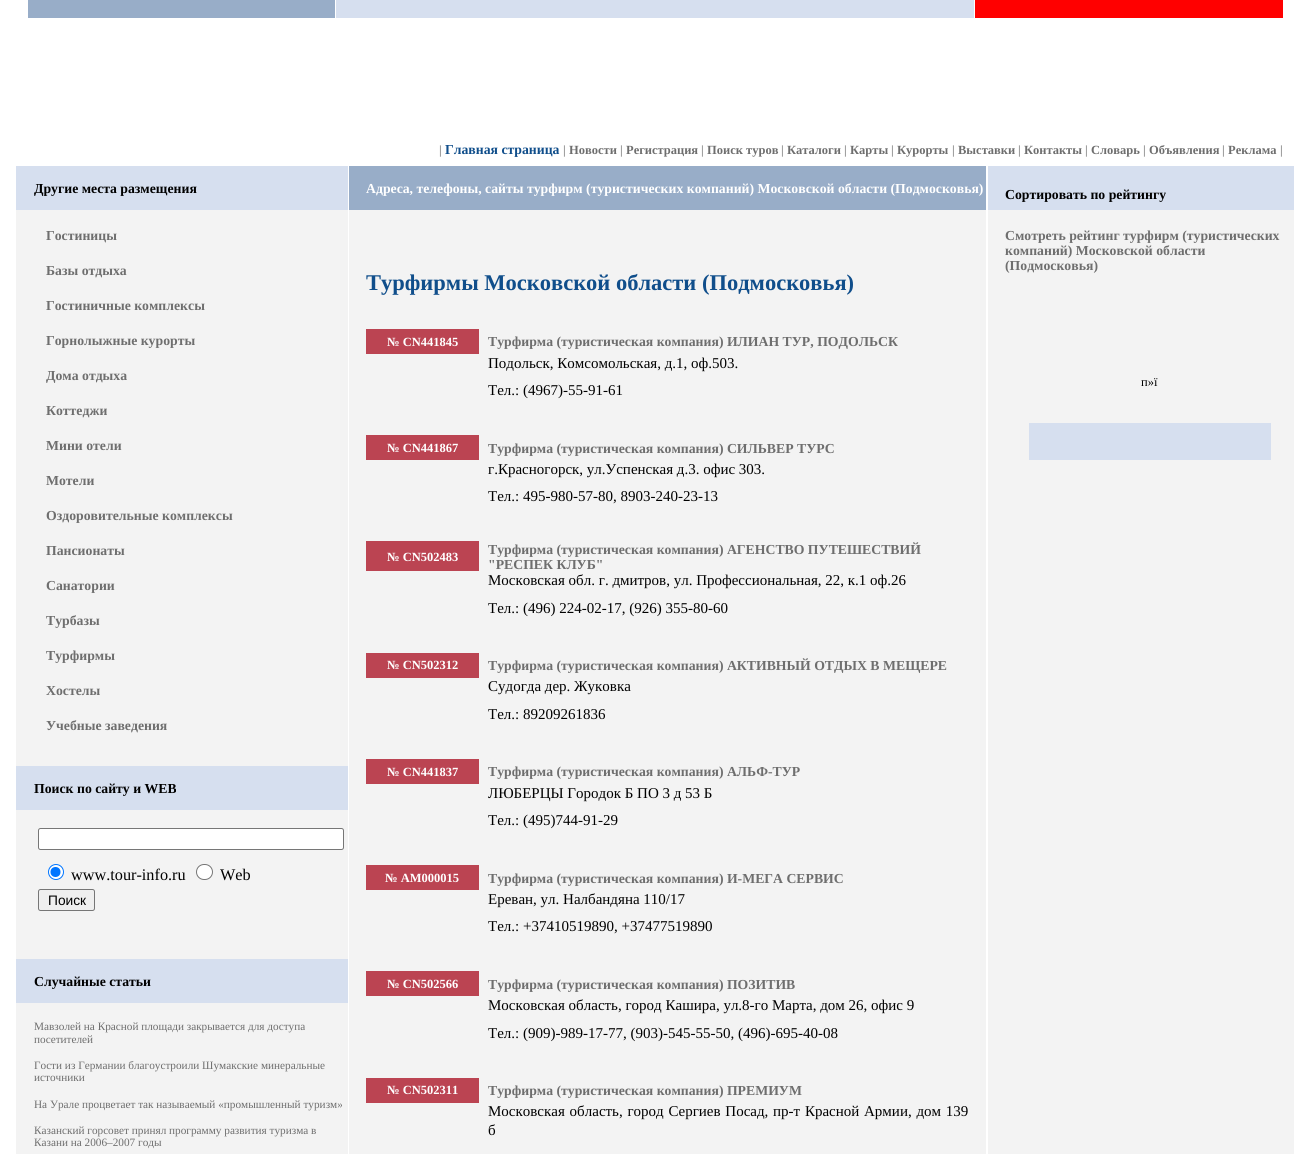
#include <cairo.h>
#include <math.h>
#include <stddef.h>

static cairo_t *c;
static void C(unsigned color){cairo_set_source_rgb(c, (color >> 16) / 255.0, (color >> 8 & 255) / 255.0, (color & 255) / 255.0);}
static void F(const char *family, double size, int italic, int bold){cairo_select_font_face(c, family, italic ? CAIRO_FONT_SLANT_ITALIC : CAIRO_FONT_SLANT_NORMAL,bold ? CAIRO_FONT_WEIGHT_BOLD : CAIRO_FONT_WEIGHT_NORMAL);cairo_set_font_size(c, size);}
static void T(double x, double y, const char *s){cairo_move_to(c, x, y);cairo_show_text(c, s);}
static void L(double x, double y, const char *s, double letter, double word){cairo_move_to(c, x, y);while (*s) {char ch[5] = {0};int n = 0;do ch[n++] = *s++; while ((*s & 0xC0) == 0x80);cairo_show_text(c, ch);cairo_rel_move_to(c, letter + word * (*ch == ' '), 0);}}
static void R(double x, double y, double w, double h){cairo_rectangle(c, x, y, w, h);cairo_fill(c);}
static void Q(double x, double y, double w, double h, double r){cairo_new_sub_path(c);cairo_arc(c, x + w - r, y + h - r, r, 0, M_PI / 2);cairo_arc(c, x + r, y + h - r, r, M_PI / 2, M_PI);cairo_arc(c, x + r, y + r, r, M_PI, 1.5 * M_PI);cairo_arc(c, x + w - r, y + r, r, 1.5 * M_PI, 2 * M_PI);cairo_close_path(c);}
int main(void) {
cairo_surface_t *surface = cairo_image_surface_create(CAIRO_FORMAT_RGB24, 1309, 1154);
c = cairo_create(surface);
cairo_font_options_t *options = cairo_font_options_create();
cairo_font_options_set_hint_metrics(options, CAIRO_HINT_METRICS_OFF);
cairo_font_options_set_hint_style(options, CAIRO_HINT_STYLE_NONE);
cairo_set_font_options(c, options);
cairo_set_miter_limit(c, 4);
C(0xffffff);
cairo_paint(c);
C(0x98adc8);
R(28,0,307,18);
C(0xd6dfef);
R(336,0,638,18);
C(0xff0000);
R(975,0,308,18);
F("Liberation Serif",12.5,0,1);
C(0x8c8c8c);
T(439,154,"|");
F("Liberation Serif",13.75,0,1);
C(0x104e8b);
T(445,154,"Главная страница");
F("Liberation Serif",12.5,0,1);
C(0x8c8c8c);
T(563,154,"|");
C(0x6e6e6e);
T(569,154,"Новости");
C(0x8c8c8c);
T(620,154,"|");
C(0x6e6e6e);
T(626,154,"Регистрация");
C(0x8c8c8c);
T(701,154,"|");
C(0x6e6e6e);
T(707,154,"Поиск туров");
C(0x8c8c8c);
T(781,154,"|");
C(0x6e6e6e);
T(787,154,"Каталоги");
C(0x8c8c8c);
T(844,154,"|");
C(0x6e6e6e);
T(850,154,"Карты");
C(0x8c8c8c);
T(891,154,"|");
C(0x6e6e6e);
T(897,154,"Курорты");
C(0x8c8c8c);
T(952,154,"|");
C(0x6e6e6e);
T(958,154,"Выставки");
C(0x8c8c8c);
T(1018,154,"|");
C(0x6e6e6e);
T(1024,154,"Контакты");
C(0x8c8c8c);
T(1085,154,"|");
C(0x6e6e6e);
T(1091,154,"Словарь");
C(0x8c8c8c);
T(1143,154,"|");
C(0x6e6e6e);
T(1149,154,"Объявления");
C(0x8c8c8c);
T(1222,154,"|");
C(0x6e6e6e);
T(1228,154,"Реклама");
C(0x8c8c8c);
T(1280,154,"|");
C(0xf3f3f3);
R(16,210,332,944);
C(0xd6dfef);
R(16,166,332,44);
F("Liberation Serif",13.75,0,1);
C(0x000000);
T(34,193,"Другие места размещения");
C(0x6e6e6e);
T(46,240,"Гостиницы");
T(46,275,"Базы отдыха");
T(46,310,"Гостиничные комплексы");
T(46,345,"Горнолыжные курорты");
T(46,380,"Дома отдыха");
T(46,415,"Коттеджи");
T(46,450,"Мини отели");
T(46,485,"Мотели");
T(46,520,"Оздоровительные комплексы");
T(46,555,"Пансионаты");
T(46,590,"Санатории");
T(46,625,"Турбазы");
T(46,660,"Турфирмы");
T(46,695,"Хостелы");
T(46,730,"Учебные заведения");
C(0xd6dfef);
R(16,766,332,44);
C(0x000000);
T(34,793,"Поиск по сайту и WEB");
C(0xffffff);
Q(38.5,828.5,305,21,2);
cairo_fill_preserve(c);
C(0x767676);
cairo_set_line_width(c,1);
cairo_stroke(c);
C(0xffffff);
cairo_arc(c,56,872,7.5,0,2 * M_PI);
cairo_fill_preserve(c);
C(0x0075ff);
cairo_stroke(c);
cairo_arc(c,55.5,872,5,0,2 * M_PI);
cairo_fill(c);
F("Liberation Serif",16.25,0,0);
C(0x000000);
T(71,880,"www.tour-info.ru");
C(0xffffff);
Q(196.5,864.5,16,15,7.5);
cairo_fill_preserve(c);
C(0x767676);
cairo_stroke(c);
C(0x000000);
T(220,880,"Web");
C(0xefefef);
Q(38.5,889.5,56,21,2);
cairo_fill_preserve(c);
C(0x767676);
cairo_stroke(c);
F("Liberation Sans",13.75,0,0);
C(0x000000);
T(48,905,"Поиск");
C(0xd6dfef);
R(16,959,332,44);
F("Liberation Serif",13.75,0,1);
C(0x000000);
T(34,986,"Случайные статьи");
F("Liberation Serif",11.25,0,0);
C(0x6e6e6e);
T(34,1030,"Мавзолей на Красной площади закрывается для доступа");
T(34,1043,"посетителей");
T(34,1069,"Гости из Германии благоустроили Шумакские минеральные");
T(34,1081,"источники");
T(34,1108,"На Урале процветает так называемый «промышленный туризм»");
T(34,1134,"Казанский горсовет принял программу развития туризма в");
T(34,1146,"Казани на 2006–2007 годы");
C(0xf3f3f3);
R(349,210,637,944);
C(0x98adc8);
R(349,166,637,44);
F("Liberation Serif",13.75,0,1);
C(0xffffff);
T(366,193,"Адреса, телефоны, сайты турфирм (туристических компаний) Московской области (Подмосковья)");
F("Liberation Serif",22.5,0,1);
C(0x104e8b);
T(366,290,"Турфирмы Московской области (Подмосковья)");
C(0xbb4452);
R(366,329,113,25);
F("Liberation Serif",12.5,0,1);
C(0xffffff);
T(387,346,"№ CN441845");
F("Liberation Serif",13.75,0,1);
C(0x6e6e6e);
T(488,346,"Турфирма (туристическая компания) ИЛИАН ТУР, ПОДОЛЬСК");
F("Liberation Serif",15,0,0);
C(0x000000);
T(488,368,"Подольск, Комсомольская, д.1, оф.503.");
T(488,395,"Тел.: (4967)-55-91-61");
C(0xbb4452);
R(366,435,113,25);
F("Liberation Serif",12.5,0,1);
C(0xffffff);
T(387,452,"№ CN441867");
F("Liberation Serif",13.75,0,1);
C(0x6e6e6e);
T(488,453,"Турфирма (туристическая компания) СИЛЬВЕР ТУРС");
F("Liberation Serif",15,0,0);
C(0x000000);
T(488,474,"г.Красногорск, ул.Успенская д.3. офис 303.");
T(488,501,"Тел.: 495-980-57-80, 8903-240-23-13");
C(0xbb4452);
R(366,541,113,30);
F("Liberation Serif",12.5,0,1);
C(0xffffff);
T(387,561,"№ CN502483");
F("Liberation Serif",13.75,0,1);
C(0x6e6e6e);
T(488,554,"Турфирма (туристическая компания) АГЕНСТВО ПУТЕШЕСТВИЙ");
T(488,569,"\"РЕСПЕК КЛУБ\"");
F("Liberation Serif",15,0,0);
C(0x000000);
T(488,585,"Московская обл. г. дмитров, ул. Профессиональная, 22, к.1 оф.26");
T(488,613,"Тел.: (496) 224-02-17, (926) 355-80-60");
C(0xbb4452);
R(366,653,113,25);
F("Liberation Serif",12.5,0,1);
C(0xffffff);
T(387,669,"№ CN502312");
F("Liberation Serif",13.75,0,1);
C(0x6e6e6e);
T(488,670,"Турфирма (туристическая компания) АКТИВНЫЙ ОТДЫХ В МЕЩЕРЕ");
F("Liberation Serif",15,0,0);
C(0x000000);
T(488,691,"Судогда дер. Жуковка");
T(488,719,"Тел.: 89209261836");
C(0xbb4452);
R(366,759,113,25);
F("Liberation Serif",12.5,0,1);
C(0xffffff);
T(387,776,"№ CN441837");
F("Liberation Serif",13.75,0,1);
C(0x6e6e6e);
T(488,776,"Турфирма (туристическая компания) АЛЬФ-ТУР");
F("Liberation Serif",15,0,0);
C(0x000000);
T(488,798,"ЛЮБЕРЦЫ Городок Б ПО 3 д 53 Б");
T(488,825,"Тел.: (495)744-91-29");
C(0xbb4452);
R(366,865,113,25);
F("Liberation Serif",12.5,0,1);
C(0xffffff);
T(385,882,"№ AM000015");
F("Liberation Serif",13.75,0,1);
C(0x6e6e6e);
T(488,883,"Турфирма (туристическая компания) И-МЕГА СЕРВИС");
F("Liberation Serif",15,0,0);
C(0x000000);
T(488,904,"Ереван, ул. Налбандяна 110/17");
T(488,931,"Тел.: +37410519890, +37477519890");
C(0xbb4452);
R(366,971,113,25);
F("Liberation Serif",12.5,0,1);
C(0xffffff);
T(387,988,"№ CN502566");
F("Liberation Serif",13.75,0,1);
C(0x6e6e6e);
T(488,989,"Турфирма (туристическая компания) ПОЗИТИВ");
F("Liberation Serif",15,0,0);
C(0x000000);
T(488,1010,"Московская область, город Кашира, ул.8-го Марта, дом 26, офис 9");
T(488,1038,"Тел.: (909)-989-17-77, (903)-545-55-50, (496)-695-40-08");
C(0xbb4452);
R(366,1078,113,25);
F("Liberation Serif",12.5,0,1);
C(0xffffff);
T(387,1094,"№ CN502311");
F("Liberation Serif",13.75,0,1);
C(0x6e6e6e);
T(488,1095,"Турфирма (туристическая компания) ПРЕМИУМ");
F("Liberation Serif",15,0,0);
C(0x000000);
L(488,1116,"Московская область, город Сергиев Посад, пр-т Красной Армии, дом 139",0,1);
T(488,1135,"б");
C(0xf3f3f3);
R(988,210,306,944);
C(0xd6dfef);
R(988,166,306,44);
F("Liberation Serif",13.75,0,1);
C(0x000000);
T(1005,199,"Сортировать по рейтингу");
C(0x6e6e6e);
T(1005,240,"Смотреть рейтинг турфирм (туристических");
T(1005,255,"компаний) Московской области");
T(1005,270,"(Подмосковья)");
F("Liberation Serif",12.5,0,0);
C(0x000000);
T(1141,386,"п»ї");
C(0xd6dfef);
R(1029,423,242,37);
cairo_surface_write_to_png(surface, "o.png");
cairo_font_options_destroy(options);
cairo_destroy(c);
cairo_surface_destroy(surface);
return 0;
}
